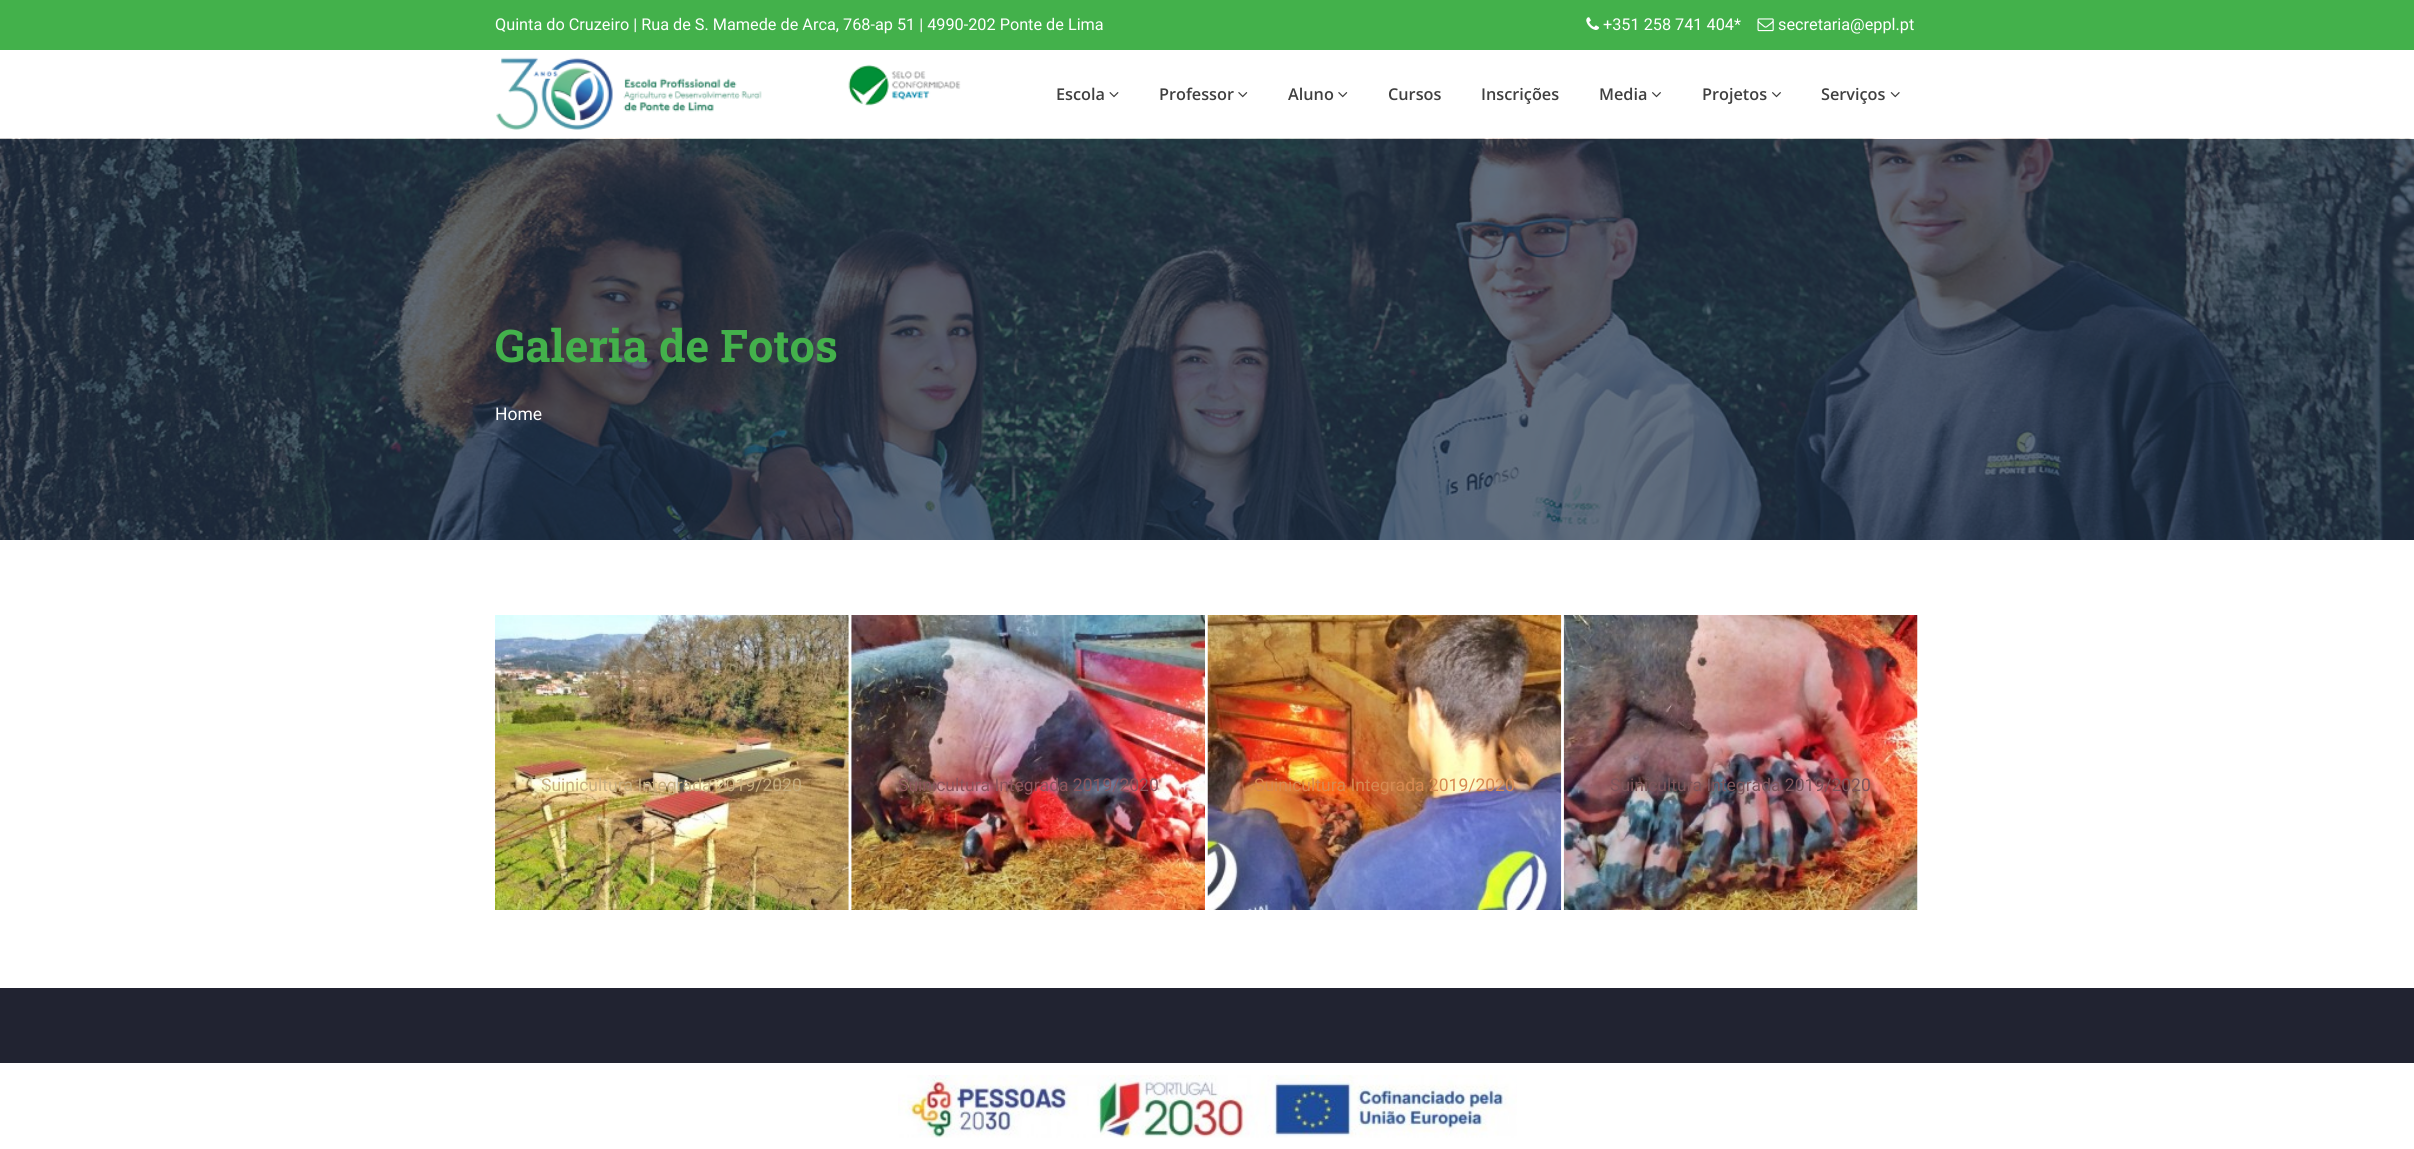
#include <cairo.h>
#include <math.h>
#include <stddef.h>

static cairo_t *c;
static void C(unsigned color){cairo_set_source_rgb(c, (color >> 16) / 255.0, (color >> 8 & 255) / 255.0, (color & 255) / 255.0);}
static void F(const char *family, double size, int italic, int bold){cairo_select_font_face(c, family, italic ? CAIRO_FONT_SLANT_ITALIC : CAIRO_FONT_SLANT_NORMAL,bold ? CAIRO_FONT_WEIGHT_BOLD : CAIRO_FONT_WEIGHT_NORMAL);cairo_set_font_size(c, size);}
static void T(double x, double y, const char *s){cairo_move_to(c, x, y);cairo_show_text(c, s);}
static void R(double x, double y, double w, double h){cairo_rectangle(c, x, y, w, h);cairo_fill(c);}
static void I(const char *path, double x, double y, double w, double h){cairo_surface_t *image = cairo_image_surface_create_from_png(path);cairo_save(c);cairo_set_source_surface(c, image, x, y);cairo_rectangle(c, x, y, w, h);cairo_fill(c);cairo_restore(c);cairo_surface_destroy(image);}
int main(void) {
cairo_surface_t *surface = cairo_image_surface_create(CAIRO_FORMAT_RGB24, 2414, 1149);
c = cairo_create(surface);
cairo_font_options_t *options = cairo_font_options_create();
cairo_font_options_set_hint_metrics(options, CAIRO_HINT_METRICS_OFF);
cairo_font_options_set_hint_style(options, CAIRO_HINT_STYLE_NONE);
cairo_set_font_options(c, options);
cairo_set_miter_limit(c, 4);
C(0xffffff);
cairo_paint(c);
C(0x43b14b);
R(0,0,2414,50);
F("Roboto",16.25,0,0);
C(0xffffff);
T(495,30,"Quinta do Cruzeiro | Rua de S. Mamede de Arca, 768-ap 51 | 4990-202 Ponte de Lima");
I("1.png",1586,17,13,13);
T(1603,30,"+351 258 741 404*");
I("2.png",1757,18,17,14);
T(1778,30,"secretaria@eppl.pt");
I("3.png",496,57,465,73);
F("Open Sans SemiBold",16.25,0,0);
C(0x404040);
T(1056,100,"Escola");
I("4.png",1109,92,10,6);
T(1159,100,"Professor");
I("5.png",1238,92,10,6);
T(1288,100,"Aluno");
I("5.png",1338,92,10,6);
T(1388,100,"Cursos");
T(1481,100,"Inscrições");
T(1599,100,"Media");
I("6.png",1652,92,9,6);
T(1702,100,"Projetos");
I("6.png",1772,92,9,6);
T(1821,100,"Serviços");
I("7.png",1890,92,10,6);
I("8.png",0,138,2414,402);
F("Roboto Slab",45,0,1);
C(0x43b14b);
T(495,362,"Galeria de Fotos");
F("Roboto",17.5,0,0);
C(0xffffff);
T(495,420,"Home");
I("9.png",495,615,354,295);
C(0xc6ae80);
T(541,791,"Suinicultura Integrada 2019/2020");
I("10.png",851,615,354,295);
C(0x8d545c);
T(898,791,"Suinicultura Integrada 2019/2020");
I("11.png",1207,615,355,295);
C(0xd78951);
T(1254,791,"Suinicultura Integrada 2019/2020");
I("12.png",1563,615,355,295);
C(0x7d555b);
T(1610,791,"Suinicultura Integrada 2019/2020");
C(0x212331);
R(0,988,2414,75);
I("13.png",898,1075,619,63);
cairo_surface_write_to_png(surface, "o.png");
cairo_font_options_destroy(options);
cairo_destroy(c);
cairo_surface_destroy(surface);
return 0;
}
